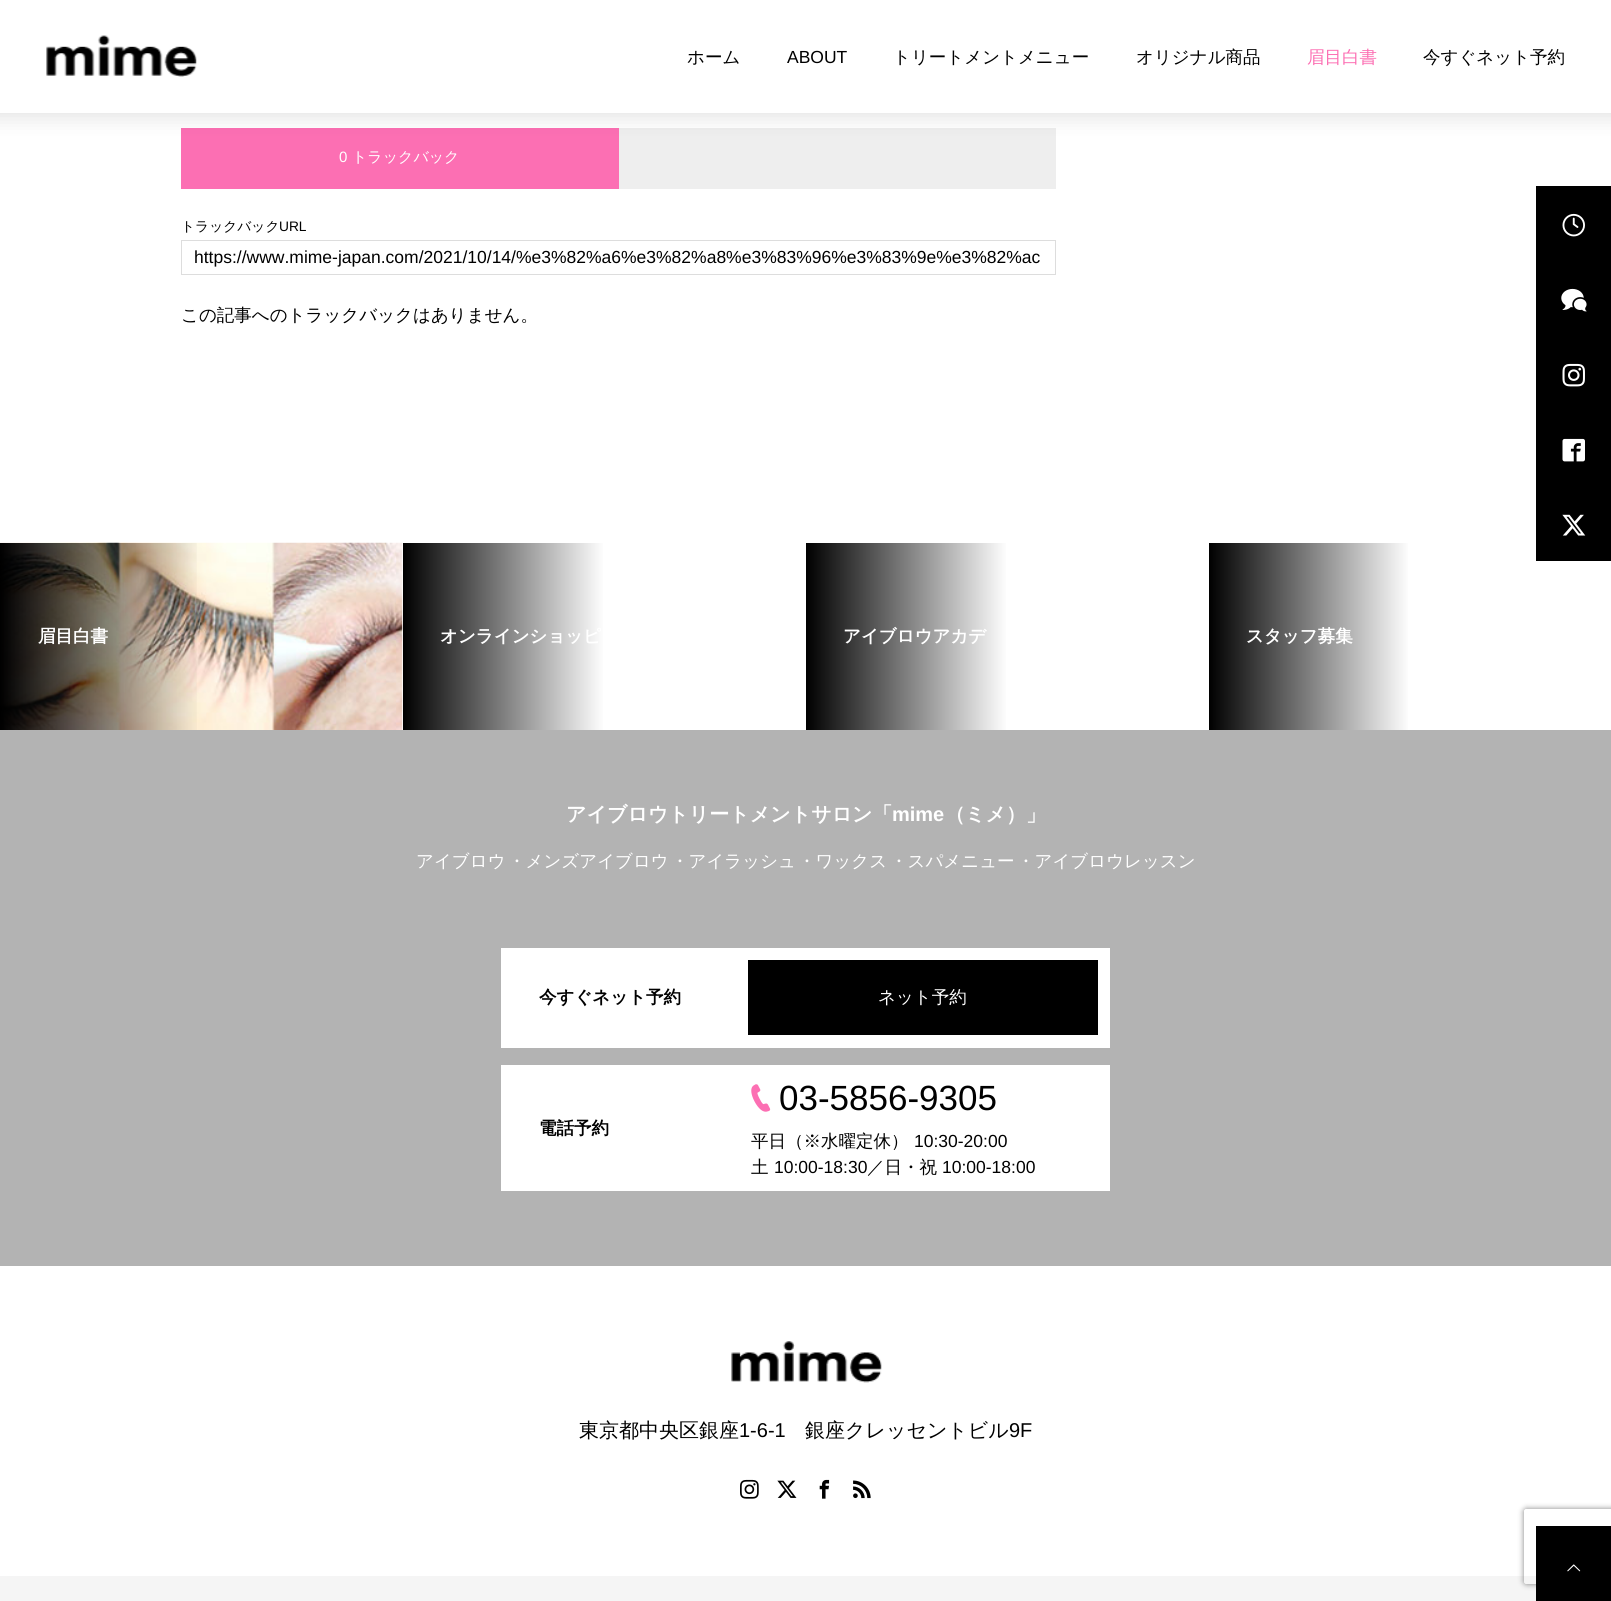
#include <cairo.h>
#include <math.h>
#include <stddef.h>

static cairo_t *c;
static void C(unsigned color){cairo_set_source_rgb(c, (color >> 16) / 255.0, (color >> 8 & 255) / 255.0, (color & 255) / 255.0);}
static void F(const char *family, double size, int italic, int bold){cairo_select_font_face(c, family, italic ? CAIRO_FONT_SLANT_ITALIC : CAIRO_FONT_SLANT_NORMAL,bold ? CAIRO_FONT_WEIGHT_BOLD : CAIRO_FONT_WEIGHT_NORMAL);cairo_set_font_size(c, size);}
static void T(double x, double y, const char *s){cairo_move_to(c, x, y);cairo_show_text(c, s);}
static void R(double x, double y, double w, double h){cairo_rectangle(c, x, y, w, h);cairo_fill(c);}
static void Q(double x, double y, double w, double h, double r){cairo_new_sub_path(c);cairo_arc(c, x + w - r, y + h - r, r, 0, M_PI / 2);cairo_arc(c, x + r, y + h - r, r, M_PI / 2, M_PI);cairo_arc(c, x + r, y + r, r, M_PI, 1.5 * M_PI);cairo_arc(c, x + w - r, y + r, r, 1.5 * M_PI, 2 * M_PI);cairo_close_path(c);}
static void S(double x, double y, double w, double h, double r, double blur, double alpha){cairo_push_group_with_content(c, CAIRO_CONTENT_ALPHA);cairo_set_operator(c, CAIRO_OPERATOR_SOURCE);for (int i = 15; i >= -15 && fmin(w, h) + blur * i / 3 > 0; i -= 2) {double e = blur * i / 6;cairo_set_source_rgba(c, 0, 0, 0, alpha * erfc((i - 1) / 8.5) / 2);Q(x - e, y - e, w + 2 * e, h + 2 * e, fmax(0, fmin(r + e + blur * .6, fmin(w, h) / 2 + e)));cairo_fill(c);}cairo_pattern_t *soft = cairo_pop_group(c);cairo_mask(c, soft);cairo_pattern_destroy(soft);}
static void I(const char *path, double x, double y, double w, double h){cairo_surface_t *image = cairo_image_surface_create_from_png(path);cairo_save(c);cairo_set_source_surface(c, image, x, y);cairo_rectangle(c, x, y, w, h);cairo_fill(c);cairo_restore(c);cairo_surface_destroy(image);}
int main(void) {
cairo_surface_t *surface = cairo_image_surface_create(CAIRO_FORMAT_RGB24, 1611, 1601);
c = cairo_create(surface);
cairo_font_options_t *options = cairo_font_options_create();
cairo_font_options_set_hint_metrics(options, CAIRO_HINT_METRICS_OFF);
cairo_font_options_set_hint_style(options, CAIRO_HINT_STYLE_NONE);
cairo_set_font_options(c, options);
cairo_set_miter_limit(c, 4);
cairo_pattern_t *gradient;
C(0xffffff);
cairo_paint(c);
C(0xeeeeee);
R(619,128,437,61);
C(0xfc6fb3);
R(181,128,438,61);
C(0x000000);
S(-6,-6,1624,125,0,9.5,.1);
C(0xffffff);
R(0,0,1611,113);
I("1.png",46,35,151,42);
F("WenQuanYi Zen Hei Medium",17.5,0,0);
C(0x000000);
T(687,63,"ホーム");
F("Liberation Sans",17.5,0,0);
T(787,63,"ABOUT");
F("WenQuanYi Zen Hei Medium",17.5,0,0);
T(893,63,"トリートメントメニュー");
T(1136,63,"オリジナル商品");
C(0xfc6fb3);
T(1307,63,"眉目白書");
C(0x000000);
T(1423,63,"今すぐネット予約");
F("Liberation Sans",15,0,0);
C(0xffffff);
T(339,162,"0");
F("WenQuanYi Zen Hei Medium",15,0,0);
T(352,162,"トラックバック");
F("WenQuanYi Zen Hei Medium",13.75,0,0);
C(0x000000);
T(181,231,"トラックバック");
F("Liberation Sans",13.75,0,0);
T(279,231,"URL");
cairo_rectangle(c,181.5,240.5,874,34);
C(0xdddddd);
cairo_set_line_width(c,1);
cairo_stroke(c);
F("Liberation Sans",17.5,0,0);
C(0x000000);
T(194,263,"https://www.mime-japan.com/2021/10/14/%e3%82%a6%e3%82%a8%e3%83%96%e3%83%9e%e3%82%ac");
F("WenQuanYi Zen Hei Medium",17.5,0,0);
T(181,321,"この記事へのトラックバックはありません。");
R(1536,186,75,375);
I("2.png",1562,213,23,24);
I("3.png",1561,288,26,24);
I("4.png",1562,363,23,24);
I("5.png",1562,438,23,24);
I("6.png",1562,514,24,22);
I("7.png",0,542,403,188);
gradient = cairo_pattern_create_linear(0,636,403,636);
cairo_pattern_add_color_stop_rgba(gradient,0,0,0,0,1);
cairo_pattern_add_color_stop_rgba(gradient,.5,0,0,0,0);
cairo_set_source(c,gradient);
cairo_pattern_destroy(gradient);
R(0,543,197,187);
F("WenQuanYi Zen Hei",17.5,0,1);
C(0xffffff);
T(38,642,"眉目白書");
gradient = cairo_pattern_create_linear(403,636,806,636);
cairo_pattern_add_color_stop_rgba(gradient,0,0,0,0,1);
cairo_pattern_add_color_stop_rgba(gradient,.5,1,1,1,1);
cairo_set_source(c,gradient);
cairo_pattern_destroy(gradient);
R(403,543,200,187);
C(0xffffff);
T(440,642,"オンラインショッピ");
gradient = cairo_pattern_create_linear(806,636,1209,636);
cairo_pattern_add_color_stop_rgba(gradient,0,0,0,0,1);
cairo_pattern_add_color_stop_rgba(gradient,.5,1,1,1,1);
cairo_set_source(c,gradient);
cairo_pattern_destroy(gradient);
R(806,543,200,187);
C(0xffffff);
T(843,642,"アイブロウアカデ");
gradient = cairo_pattern_create_linear(1209,636,1611,636);
cairo_pattern_add_color_stop_rgba(gradient,0,0,0,0,1);
cairo_pattern_add_color_stop_rgba(gradient,.5,1,1,1,1);
cairo_set_source(c,gradient);
cairo_pattern_destroy(gradient);
R(1209,543,199,187);
C(0xffffff);
T(1246,642,"スタッフ募集");
C(0xb3b3b3);
R(0,730,1611,536);
F("WenQuanYi Zen Hei",20,0,1);
C(0xffffff);
T(566,821,"アイブロウトリートメントサロン「");
F("Liberation Sans",20,0,1);
T(892,821,"mime");
F("WenQuanYi Zen Hei",20,0,1);
T(945,821,"（ミメ）」");
F("WenQuanYi Zen Hei Medium",17.5,0,0);
T(416,867,"アイブロウ");
T(508,867,"・メンズアイブロウ");
T(671,867,"・アイラッシュ");
T(798,867,"・ワックス");
T(890,867,"・スパメニュー");
T(1017,867,"・アイブロウレッスン");
R(501,948,609,100);
F("WenQuanYi Zen Hei",17.5,0,1);
C(0x000000);
T(539,1003,"今すぐネット予約");
R(748,960,350,75);
F("WenQuanYi Zen Hei Medium",17.5,0,0);
C(0xffffff);
T(878,1003,"ネット予約");
R(501,1065,609,126);
F("WenQuanYi Zen Hei",17.5,0,1);
C(0x000000);
T(539,1134,"電話予約");
I("8.png",751,1084,20,28);
F("Liberation Sans",35,0,0);
T(779,1110,"03-5856-9305");
F("WenQuanYi Zen Hei Medium",17.5,0,0);
T(751,1147,"平日（※水曜定休）");
F("Liberation Sans",17.5,0,0);
T(914,1147,"10:30-20:00");
F("WenQuanYi Zen Hei Medium",17.5,0,0);
T(751,1173,"土");
F("Liberation Sans",17.5,0,0);
T(774,1173,"10:00-18:30");
F("WenQuanYi Zen Hei Medium",17.5,0,0);
T(867,1173,"／日・祝");
F("Liberation Sans",17.5,0,0);
T(942,1173,"10:00-18:00");
I("9.png",731,1341,151,42);
F("WenQuanYi Zen Hei Medium",20,0,0);
T(579,1437,"東京都中央区銀座");
F("Liberation Sans",20,0,0);
T(739,1437,"1-6-1");
F("WenQuanYi Zen Hei Medium",20,0,0);
T(805,1437,"銀座クレッセントビル");
F("Liberation Sans",20,0,0);
T(1009,1437,"9F");
I("10.png",740,1479,19,20);
I("11.png",777,1480,20,18);
I("12.png",819,1479,11,20);
I("13.png",853,1480,18,19);
C(0xf5f5f5);
R(0,1576,1536,25);
cairo_save(c);
cairo_set_fill_rule(c,CAIRO_FILL_RULE_EVEN_ODD);
cairo_new_path(c);
cairo_move_to(c,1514,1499);
cairo_line_to(c,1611,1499);
cairo_line_to(c,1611,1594);
cairo_line_to(c,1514,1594);
cairo_close_path(c);
cairo_move_to(c,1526.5,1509);
cairo_line_to(c,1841.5,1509);
cairo_curve_to(c,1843,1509,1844,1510,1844,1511.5);
cairo_line_to(c,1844,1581.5);
cairo_curve_to(c,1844,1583,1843,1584,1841.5,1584);
cairo_line_to(c,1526.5,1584);
cairo_curve_to(c,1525,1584,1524,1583,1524,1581.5);
cairo_line_to(c,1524,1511.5);
cairo_curve_to(c,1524,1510,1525,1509,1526.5,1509);
cairo_close_path(c);
cairo_clip(c);
C(0x808080);
S(1524,1509,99,75,2.5,3,1);
cairo_restore(c);
C(0x000000);
R(1536,1526,75,75);
I("14.png",1567,1564,14,8);
cairo_surface_write_to_png(surface, "o.png");
cairo_font_options_destroy(options);
cairo_destroy(c);
cairo_surface_destroy(surface);
return 0;
}
